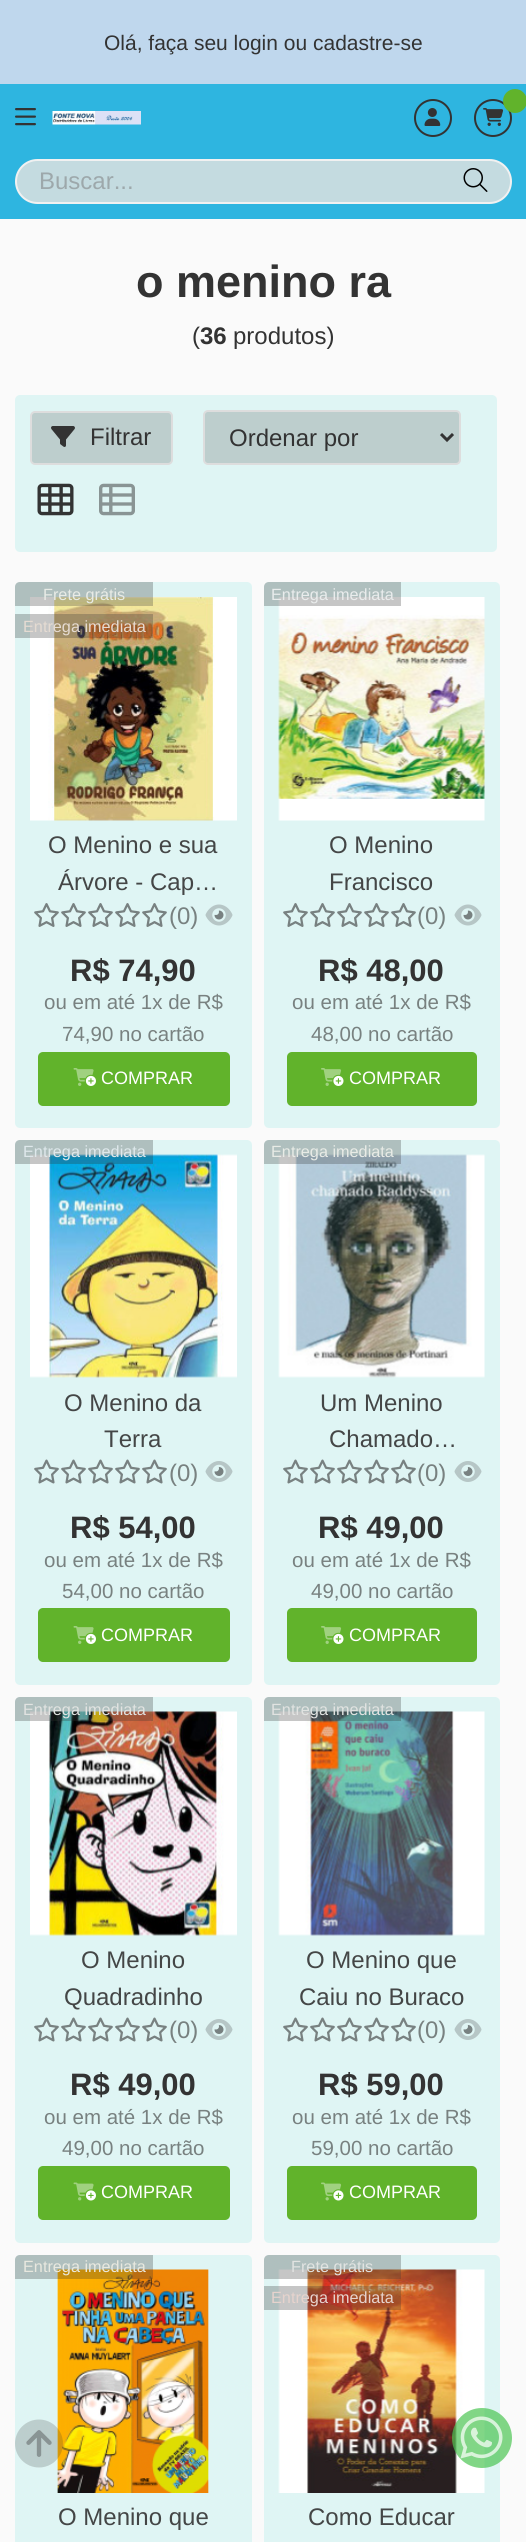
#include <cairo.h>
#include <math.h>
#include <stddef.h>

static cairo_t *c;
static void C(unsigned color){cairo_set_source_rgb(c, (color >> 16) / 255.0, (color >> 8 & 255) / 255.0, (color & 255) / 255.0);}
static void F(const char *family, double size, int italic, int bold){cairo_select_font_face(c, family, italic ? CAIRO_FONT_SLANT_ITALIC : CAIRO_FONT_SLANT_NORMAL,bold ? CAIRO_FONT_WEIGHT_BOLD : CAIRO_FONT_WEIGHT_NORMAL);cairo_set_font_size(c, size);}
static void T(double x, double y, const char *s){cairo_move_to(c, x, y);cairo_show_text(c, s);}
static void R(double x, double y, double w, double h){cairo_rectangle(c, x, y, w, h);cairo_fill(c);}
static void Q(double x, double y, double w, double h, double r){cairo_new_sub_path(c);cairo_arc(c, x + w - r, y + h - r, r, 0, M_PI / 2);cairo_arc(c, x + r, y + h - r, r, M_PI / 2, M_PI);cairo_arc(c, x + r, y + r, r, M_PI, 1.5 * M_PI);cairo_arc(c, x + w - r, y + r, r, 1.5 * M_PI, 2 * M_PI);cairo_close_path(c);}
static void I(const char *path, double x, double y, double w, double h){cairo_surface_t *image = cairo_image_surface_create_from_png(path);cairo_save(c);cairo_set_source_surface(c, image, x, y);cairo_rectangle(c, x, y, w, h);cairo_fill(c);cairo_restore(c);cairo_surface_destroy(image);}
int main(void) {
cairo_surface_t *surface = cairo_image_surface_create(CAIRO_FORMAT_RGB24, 526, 2542);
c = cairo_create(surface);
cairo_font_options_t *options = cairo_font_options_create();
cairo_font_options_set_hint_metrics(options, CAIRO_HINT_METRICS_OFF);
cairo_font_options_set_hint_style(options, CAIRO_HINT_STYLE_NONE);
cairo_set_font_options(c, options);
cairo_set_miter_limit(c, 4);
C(0xfafafa);
cairo_paint(c);
C(0xbfd7ed);
R(0,0,526,84);
F("Liberation Sans",21,0,0);
C(0x333333);
T(104,50,"Olá, faça seu login ou cadastre-se");
C(0x2eb5e0);
R(0,84,526,135);
I("1.png",15,108,21,18);
I("2.png",52,111,89,14);
cairo_arc(c,433,118,18,0,2 * M_PI);
C(0x333333);
cairo_stroke(c);
I("3.png",424,108,17,18);
cairo_arc(c,493,118,18,0,2 * M_PI);
cairo_stroke(c);
I("4.png",483,108,21,18);
C(0x61b32b);
cairo_arc(c,515,101,12,0,2 * M_PI);
cairo_fill(c);
C(0xc4dbe0);
Q(16,160,495,43,21.5);
cairo_fill_preserve(c);
C(0xf1f1f1);
cairo_stroke(c);
F("Liberation Sans",24,0,0);
C(0x9da8ab);
T(39,189,"Buscar...");
I("5.png",463,168,25,24);
F("Liberation Sans",45,0,1);
C(0x333333);
T(136,297,"o menino ra");
F("Liberation Sans",24,0,0);
T(192,344,"(");
F("Liberation Sans",24,0,1);
T(200,344,"36");
F("Liberation Sans",24,0,0);
T(233,344,"produtos)");
C(0xdff5f4);
Q(15,395,482,157,5);
cairo_fill(c);
C(0xbdcecd);
Q(31,412,141,52,4);
cairo_fill_preserve(c);
C(0xdddddd);
cairo_stroke(c);
I("6.png",51,426,24,21);
C(0x333333);
T(90,445,"Filtrar");
C(0xbdcecd);
Q(204,411,256,53,4);
cairo_fill_preserve(c);
C(0xdddddd);
cairo_stroke(c);
cairo_new_path(c);
cairo_move_to(c,441,434);
cairo_line_to(c,447,440);
cairo_line_to(c,453,434);
C(0x333333);
cairo_set_line_width(c,3);
cairo_stroke(c);
T(229,446,"Ordenar por");
I("7.png",37,483,37,33);
I("8.png",99,483,36,33);
C(0xdff5f4);
Q(15,582,237,546,5);
cairo_fill(c);
I("9.png",30,597,207,224);
cairo_set_source_rgba(c,0.2,0.2,0.2,0.28);
cairo_new_path(c);
cairo_move_to(c,20,582);
cairo_line_to(c,153,582);
cairo_line_to(c,153,606);
cairo_line_to(c,15,606);
cairo_line_to(c,15,587);
cairo_curve_to(c,15,584,17,582,20,582);
cairo_close_path(c);
cairo_fill(c);
F("Liberation Sans",16.25,0,0);
C(0xe8ebe6);
T(43,600,"Frete grátis");
cairo_set_source_rgba(c,0.2,0.2,0.2,0.28);
R(15,614,138,24);
C(0xe5dbd2);
T(23,632,"Entrega imediata");
F("Liberation Sans",24,0,0);
C(0x444646);
T(48,853,"O Menino e sua");
T(58,890,"Árvore - Cap…");
I("10.png",34,903,25,24);
I("10.png",61,903,25,24);
I("10.png",88,903,25,24);
I("10.png",115,903,25,24);
I("10.png",142,903,25,24);
C(0x788180);
T(169,924,"(0)");
I("11.png",205,904,28,22);
F("Liberation Sans",31,0,1);
C(0x333333);
T(70,981,"R$ 74,90");
F("Liberation Sans",20.5,0,0);
C(0x788180);
T(44,1009,"ou em até 1x de R$");
T(62,1041,"74,90 no cartão");
C(0x61b32b);
Q(38,1052,192,54,5);
cairo_fill(c);
I("12.png",73,1068,23,18);
F("Liberation Sans",18,0,0);
C(0xffffff);
T(101,1084,"COMPRAR");
C(0xdff5f4);
Q(264,582,236,546,5);
cairo_fill(c);
I("13.png",278,597,207,224);
cairo_set_source_rgba(c,0.2,0.2,0.2,0.28);
cairo_new_path(c);
cairo_move_to(c,269,582);
cairo_line_to(c,401,582);
cairo_line_to(c,401,606);
cairo_line_to(c,264,606);
cairo_line_to(c,264,587);
cairo_curve_to(c,264,584,266,582,269,582);
cairo_close_path(c);
cairo_fill(c);
F("Liberation Sans",16.25,0,0);
C(0xe9ecec);
T(271,600,"Entrega imediata");
F("Liberation Sans",24,0,0);
C(0x444646);
T(329,853,"O Menino");
T(329,890,"Francisco");
I("10.png",283,903,25,24);
I("10.png",310,903,25,24);
I("10.png",337,903,25,24);
I("10.png",364,903,25,24);
I("10.png",391,903,25,24);
C(0x788180);
T(417,924,"(0)");
I("11.png",454,904,28,22);
F("Liberation Sans",31,0,1);
C(0x333333);
T(318,981,"R$ 48,00");
F("Liberation Sans",20.5,0,0);
C(0x788180);
T(292,1009,"ou em até 1x de R$");
T(311,1041,"48,00 no cartão");
C(0x61b32b);
Q(287,1052,190,54,5);
cairo_fill(c);
I("14.png",321,1068,23,18);
F("Liberation Sans",18,0,0);
C(0xffffff);
T(349,1084,"COMPRAR");
C(0xdff5f4);
Q(15,1140,237,545,5);
cairo_fill(c);
I("15.png",30,1154,207,224);
cairo_set_source_rgba(c,0.2,0.2,0.2,0.28);
cairo_new_path(c);
cairo_move_to(c,20,1140);
cairo_line_to(c,153,1140);
cairo_line_to(c,153,1164);
cairo_line_to(c,15,1164);
cairo_line_to(c,15,1145);
cairo_curve_to(c,15,1142,17,1140,20,1140);
cairo_close_path(c);
cairo_fill(c);
F("Liberation Sans",16.25,0,0);
C(0xdee8eb);
T(23,1157,"Entrega imediata");
F("Liberation Sans",24,0,0);
C(0x444646);
T(64,1411,"O Menino da");
T(104,1447,"Terra");
I("16.png",34,1459,25,25);
I("16.png",61,1459,25,25);
I("16.png",88,1459,25,25);
I("16.png",115,1459,25,25);
I("16.png",142,1459,25,25);
C(0x788180);
T(169,1481,"(0)");
I("17.png",205,1461,28,21);
F("Liberation Sans",31,0,1);
C(0x333333);
T(70,1538,"R$ 54,00");
F("Liberation Sans",20.5,0,0);
C(0x788180);
T(44,1567,"ou em até 1x de R$");
T(62,1598,"54,00 no cartão");
C(0x61b32b);
Q(38,1608,192,54,5);
cairo_fill(c);
I("12.png",73,1626,23,18);
F("Liberation Sans",18,0,0);
C(0xffffff);
T(101,1641,"COMPRAR");
C(0xdff5f4);
Q(264,1140,236,545,5);
cairo_fill(c);
I("18.png",278,1154,207,224);
cairo_set_source_rgba(c,0.2,0.2,0.2,0.28);
cairo_new_path(c);
cairo_move_to(c,269,1140);
cairo_line_to(c,401,1140);
cairo_line_to(c,401,1164);
cairo_line_to(c,264,1164);
cairo_line_to(c,264,1145);
cairo_curve_to(c,264,1142,266,1140,269,1140);
cairo_close_path(c);
cairo_fill(c);
F("Liberation Sans",16.25,0,0);
C(0xe8ebe6);
T(271,1157,"Entrega imediata");
F("Liberation Sans",24,0,0);
C(0x444646);
T(320,1411,"Um Menino");
T(329,1447,"Chamado…");
I("16.png",283,1459,25,25);
I("16.png",310,1459,25,25);
I("16.png",337,1459,25,25);
I("16.png",364,1459,25,25);
I("16.png",391,1459,25,25);
C(0x788180);
T(417,1481,"(0)");
I("17.png",454,1461,28,21);
F("Liberation Sans",31,0,1);
C(0x333333);
T(318,1538,"R$ 49,00");
F("Liberation Sans",20.5,0,0);
C(0x788180);
T(292,1567,"ou em até 1x de R$");
T(311,1598,"49,00 no cartão");
C(0x61b32b);
Q(287,1608,190,54,5);
cairo_fill(c);
I("14.png",321,1626,23,18);
F("Liberation Sans",18,0,0);
C(0xffffff);
T(349,1641,"COMPRAR");
C(0xdff5f4);
Q(15,1697,237,546,5);
cairo_fill(c);
I("19.png",30,1711,207,225);
cairo_set_source_rgba(c,0.2,0.2,0.2,0.28);
cairo_new_path(c);
cairo_move_to(c,20,1697);
cairo_line_to(c,153,1697);
cairo_line_to(c,153,1721);
cairo_line_to(c,15,1721);
cairo_line_to(c,15,1702);
cairo_curve_to(c,15,1699,17,1697,20,1697);
cairo_close_path(c);
cairo_fill(c);
F("Liberation Sans",16.25,0,0);
C(0xe1e3e1);
T(23,1715,"Entrega imediata");
F("Liberation Sans",24,0,0);
C(0x444646);
T(81,1968,"O Menino");
T(64,2005,"Quadradinho");
I("16.png",34,2017,25,25);
I("16.png",61,2017,25,25);
I("16.png",88,2017,25,25);
I("16.png",115,2017,25,25);
I("16.png",142,2017,25,25);
C(0x788180);
T(169,2038,"(0)");
I("17.png",205,2019,28,21);
F("Liberation Sans",31,0,1);
C(0x333333);
T(70,2095,"R$ 49,00");
F("Liberation Sans",20.5,0,0);
C(0x788180);
T(44,2124,"ou em até 1x de R$");
T(62,2155,"49,00 no cartão");
C(0x61b32b);
Q(38,2166,192,54,5);
cairo_fill(c);
I("20.png",73,2182,23,19);
F("Liberation Sans",18,0,0);
C(0xffffff);
T(101,2198,"COMPRAR");
C(0xdff5f4);
Q(264,1697,236,546,5);
cairo_fill(c);
I("21.png",278,1711,207,225);
cairo_set_source_rgba(c,0.2,0.2,0.2,0.28);
cairo_new_path(c);
cairo_move_to(c,269,1697);
cairo_line_to(c,401,1697);
cairo_line_to(c,401,1721);
cairo_line_to(c,264,1721);
cairo_line_to(c,264,1702);
cairo_curve_to(c,264,1699,266,1697,269,1697);
cairo_close_path(c);
cairo_fill(c);
F("Liberation Sans",16.25,0,0);
C(0xe1e3e1);
T(271,1715,"Entrega imediata");
F("Liberation Sans",24,0,0);
C(0x444646);
T(306,1968,"O Menino que");
T(299,2005,"Caiu no Buraco");
I("16.png",283,2017,25,25);
I("16.png",310,2017,25,25);
I("16.png",337,2017,25,25);
I("16.png",364,2017,25,25);
I("16.png",391,2017,25,25);
C(0x788180);
T(417,2038,"(0)");
I("17.png",454,2019,28,21);
F("Liberation Sans",31,0,1);
C(0x333333);
T(318,2095,"R$ 59,00");
F("Liberation Sans",20.5,0,0);
C(0x788180);
T(292,2124,"ou em até 1x de R$");
T(311,2155,"59,00 no cartão");
C(0x61b32b);
Q(287,2166,190,54,5);
cairo_fill(c);
I("22.png",321,2182,23,19);
F("Liberation Sans",18,0,0);
C(0xffffff);
T(349,2198,"COMPRAR");
C(0xdff5f4);
Q(15,2255,237,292,5);
cairo_fill(c);
I("23.png",57,2269,152,224);
cairo_set_source_rgba(c,0.2,0.2,0.2,0.28);
cairo_new_path(c);
cairo_move_to(c,20,2255);
cairo_line_to(c,153,2255);
cairo_line_to(c,153,2279);
cairo_line_to(c,15,2279);
cairo_line_to(c,15,2260);
cairo_curve_to(c,15,2257,17,2255,20,2255);
cairo_close_path(c);
cairo_fill(c);
F("Liberation Sans",16.25,0,0);
C(0xe8e8df);
T(23,2272,"Entrega imediata");
F("Liberation Sans",24,0,0);
C(0x444646);
T(58,2525,"O Menino que");
C(0xdff5f4);
Q(264,2255,236,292,5);
cairo_fill(c);
I("24.png",278,2269,207,224);
cairo_set_source_rgba(c,0.2,0.2,0.2,0.28);
cairo_new_path(c);
cairo_move_to(c,269,2255);
cairo_line_to(c,401,2255);
cairo_line_to(c,401,2279);
cairo_line_to(c,264,2279);
cairo_line_to(c,264,2260);
cairo_curve_to(c,264,2257,266,2255,269,2255);
cairo_close_path(c);
cairo_fill(c);
F("Liberation Sans",16.25,0,0);
C(0xe1e3e1);
T(291,2272,"Frete grátis");
cairo_set_source_rgba(c,0.2,0.2,0.2,0.28);
R(264,2286,137,24);
C(0xe6d3cd);
T(271,2303,"Entrega imediata");
F("Liberation Sans",24,0,0);
C(0x444646);
T(308,2525,"Como Educar");
cairo_set_source_rgba(c,0.298,0.773,0.329,0.7);
cairo_new_path(c);
cairo_arc(c,482,2438,30,0,2 * M_PI);
cairo_fill(c);
I("25.png",460,2416,43,43);
I("26.png",15,2419,48,49);
cairo_surface_write_to_png(surface, "o.png");
cairo_font_options_destroy(options);
cairo_destroy(c);
cairo_surface_destroy(surface);
return 0;
}
